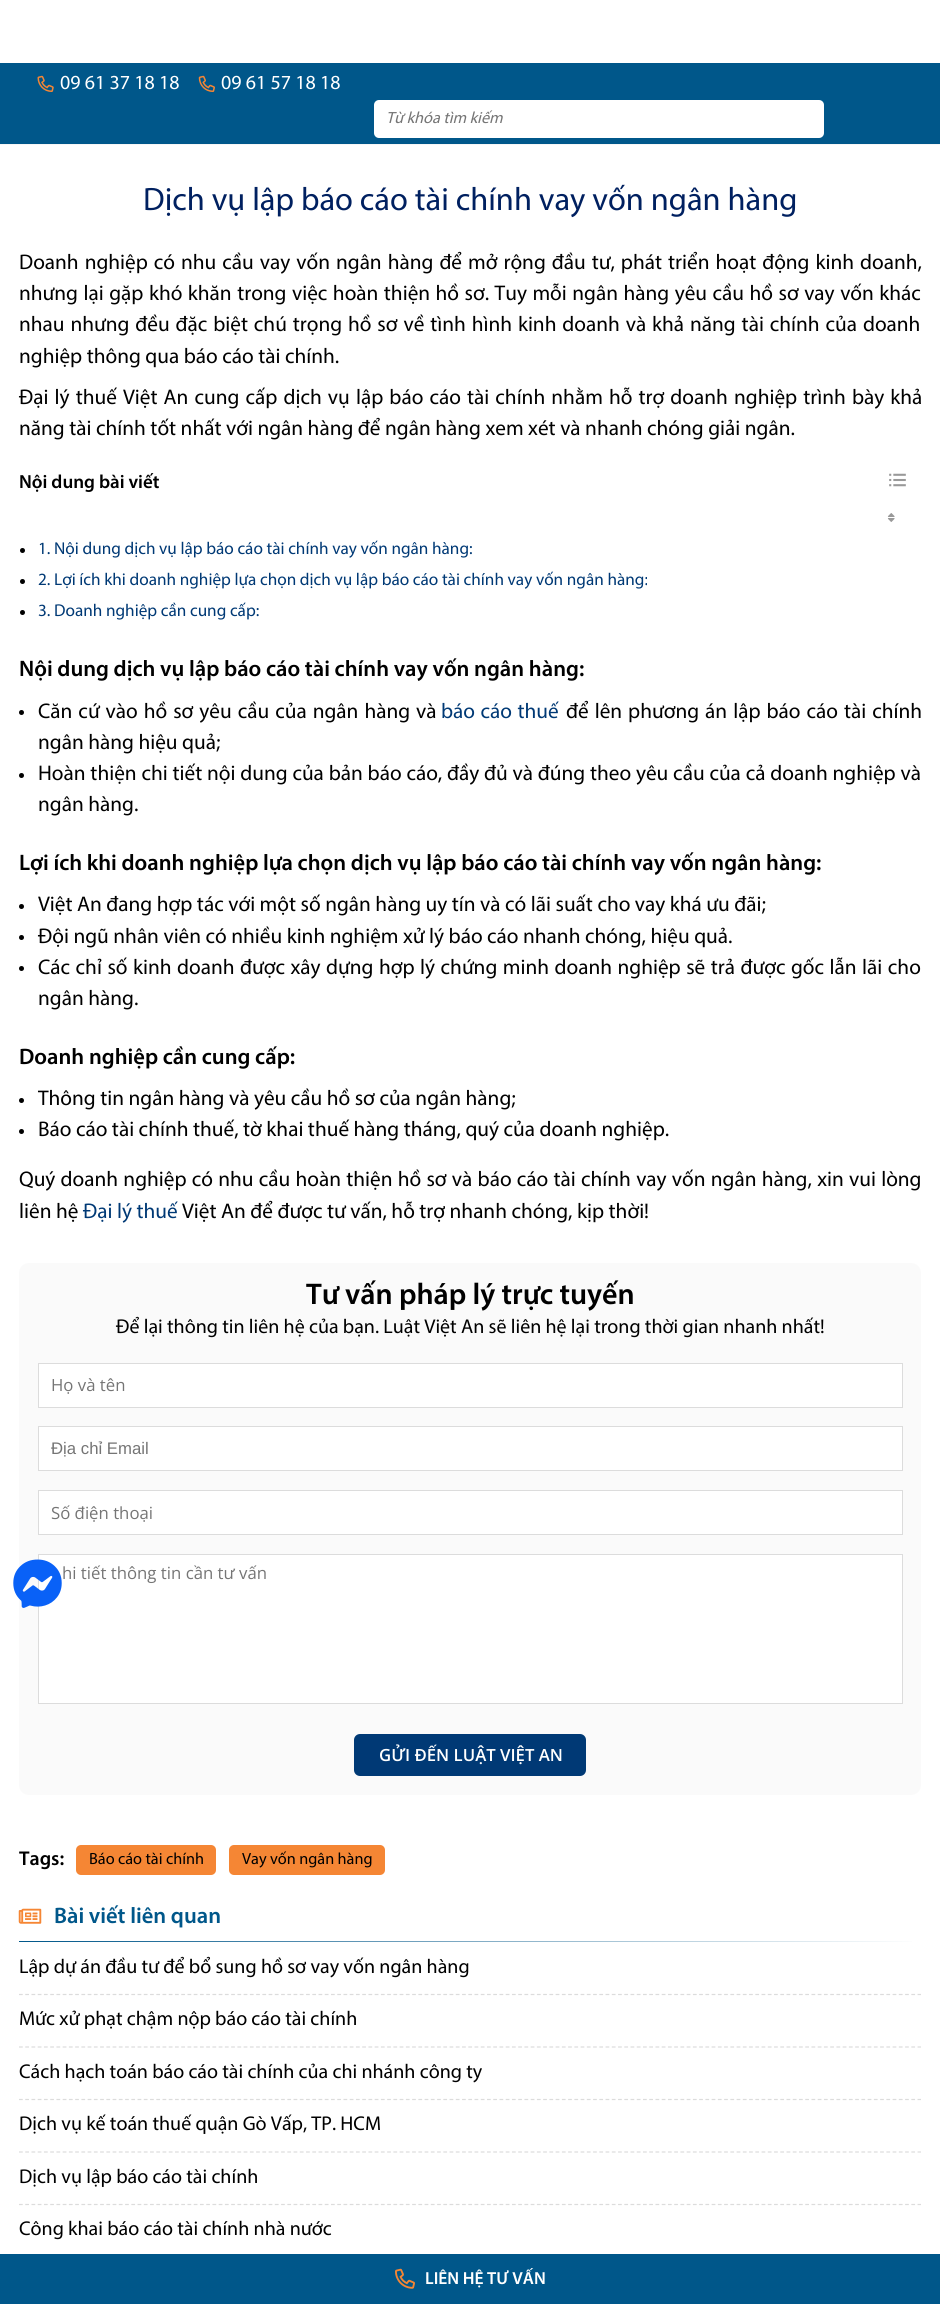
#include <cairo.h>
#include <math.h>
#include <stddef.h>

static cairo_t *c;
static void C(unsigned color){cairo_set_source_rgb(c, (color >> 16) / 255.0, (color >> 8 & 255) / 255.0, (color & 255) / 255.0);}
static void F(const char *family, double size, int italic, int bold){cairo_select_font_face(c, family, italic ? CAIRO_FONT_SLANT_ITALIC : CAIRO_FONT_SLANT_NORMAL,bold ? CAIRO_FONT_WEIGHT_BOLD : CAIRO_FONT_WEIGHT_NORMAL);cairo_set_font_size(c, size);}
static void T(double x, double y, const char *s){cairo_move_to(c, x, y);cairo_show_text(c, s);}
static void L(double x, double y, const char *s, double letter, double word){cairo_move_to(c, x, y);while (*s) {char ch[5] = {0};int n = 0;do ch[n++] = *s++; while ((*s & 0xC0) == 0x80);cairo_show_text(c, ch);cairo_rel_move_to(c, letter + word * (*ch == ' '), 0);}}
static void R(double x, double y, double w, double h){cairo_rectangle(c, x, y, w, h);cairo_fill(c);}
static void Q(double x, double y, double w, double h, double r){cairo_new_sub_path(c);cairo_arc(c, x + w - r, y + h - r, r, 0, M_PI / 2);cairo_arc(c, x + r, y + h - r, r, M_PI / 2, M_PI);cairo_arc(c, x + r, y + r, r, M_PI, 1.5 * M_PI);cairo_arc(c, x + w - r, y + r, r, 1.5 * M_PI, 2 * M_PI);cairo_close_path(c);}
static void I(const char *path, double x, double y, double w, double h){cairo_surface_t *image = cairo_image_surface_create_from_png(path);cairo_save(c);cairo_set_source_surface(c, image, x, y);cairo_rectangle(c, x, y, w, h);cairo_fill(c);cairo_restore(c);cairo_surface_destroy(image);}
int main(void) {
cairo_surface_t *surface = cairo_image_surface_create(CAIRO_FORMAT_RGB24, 940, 2304);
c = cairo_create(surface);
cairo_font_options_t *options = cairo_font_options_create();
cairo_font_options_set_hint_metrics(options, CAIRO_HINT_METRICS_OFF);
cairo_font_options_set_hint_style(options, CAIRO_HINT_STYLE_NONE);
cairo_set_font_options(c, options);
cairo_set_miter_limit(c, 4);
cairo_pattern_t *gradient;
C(0xffffff);
cairo_paint(c);
C(0x00578a);
R(0,63,940,81);
I("1.png",37,75,17,17);
F("Myriad",20,0,0);
C(0xffffff);
T(60,89,"09 61 37 18 18");
I("2.png",198,75,17,17);
T(221,89,"09 61 57 18 18");
Q(374,100,450,38,5);
cairo_fill(c);
F("Myriad",16.25,1,0);
C(0x757575);
T(386,123,"Từ khóa tìm kiếm");
C(0xf6f6f6);
R(0,144,940,1);
F("Myriad",32.5,0,0);
C(0x002060);
T(143,210,"Dịch vụ lập báo cáo tài chính vay vốn ngân hàng");
F("Myriad",21.25,0,0);
C(0x000000);
L(19,269,"Doanh nghiệp có nhu cầu vay vốn ngân hàng để mở rộng đầu tư, phát triển hoạt động kinh doanh,",0,1.5);
L(19,300,"nhưng lại gặp khó khăn trong việc hoàn thiện hồ sơ. Tuy mỗi ngân hàng yêu cầu hồ sơ vay vốn khác",0,1);
L(19,331,"nhau nhưng đều đặc biệt chú trọng hồ sơ về tình hình kinh doanh và khả năng tài chính của doanh",0,1.4);
T(19,363,"nghiệp thông qua báo cáo tài chính.");
L(19,404,"Đại lý thuế Việt An cung cấp dịch vụ lập báo cáo tài chính nhằm hỗ trợ doanh nghiệp trình bày khả",0,1.6);
T(19,435,"năng tài chính tốt nhất với ngân hàng để ngân hàng xem xét và nhanh chóng giải ngân.");
F("Myriad SemiBold",19,0,0);
T(19,488,"Nội dung bài viết");
I("3.png",889,473,17,14);
I("4.png",887,513,8,9);
cairo_arc(c,22.5,550.5,2.5,0,2 * M_PI);
cairo_fill(c);
F("Myriad",17.2,0,0);
C(0x003975);
T(38,554,"1. Nội dung dịch vụ lập báo cáo tài chính vay vốn ngân hàng:");
C(0x000000);
cairo_new_path(c);
cairo_arc(c,22.5,581.5,2.5,0,2 * M_PI);
cairo_fill(c);
C(0x003975);
T(38,585,"2. Lợi ích khi doanh nghiệp lựa chọn dịch vụ lập báo cáo tài chính vay vốn ngân hàng:");
C(0x000000);
cairo_new_path(c);
cairo_arc(c,22.5,612.5,2.5,0,2 * M_PI);
cairo_fill(c);
C(0x003975);
T(38,616,"3. Doanh nghiệp cần cung cấp:");
F("Myriad SemiBold",22.5,0,0);
C(0x000000);
T(19,676,"Nội dung dịch vụ lập báo cáo tài chính vay vốn ngân hàng:");
cairo_new_path(c);
cairo_arc(c,21.5,712.5,2.5,0,2 * M_PI);
cairo_fill(c);
F("Myriad",21.25,0,0);
L(38,718,"Căn cứ vào hồ sơ yêu cầu của ngân hàng và",0,1.5);
C(0x003975);
L(441,718,"báo cáo thuế",0,1);
C(0x000000);
L(566,718,"để lên phương án lập báo cáo tài chính",0,1.5);
T(38,749,"ngân hàng hiệu quả;");
cairo_new_path(c);
cairo_arc(c,21.5,775.5,2.5,0,2 * M_PI);
cairo_fill(c);
L(38,780,"Hoàn thiện chi tiết nội dung của bản báo cáo, đầy đủ và đúng theo yêu cầu của cả doanh nghiệp và",0,.3);
T(38,811,"ngân hàng.");
F("Myriad SemiBold",22.5,0,0);
T(19,870,"Lợi ích khi doanh nghiệp lựa chọn dịch vụ lập báo cáo tài chính vay vốn ngân hàng:");
cairo_new_path(c);
cairo_arc(c,21.5,906.5,2.5,0,2 * M_PI);
cairo_fill(c);
F("Myriad",21.25,0,0);
T(38,911,"Việt An đang hợp tác với một số ngân hàng uy tín và có lãi suất cho vay khá ưu đãi;");
cairo_new_path(c);
cairo_arc(c,21.5,937.5,2.5,0,2 * M_PI);
cairo_fill(c);
T(38,943,"Đội ngũ nhân viên có nhiều kinh nghiệm xử lý báo cáo nhanh chóng, hiệu quả.");
cairo_new_path(c);
cairo_arc(c,21.5,968.5,2.5,0,2 * M_PI);
cairo_fill(c);
L(38,974,"Các chỉ số kinh doanh được xây dựng hợp lý chứng minh doanh nghiệp sẽ trả được gốc lẫn lãi cho",0,1);
T(38,1005,"ngân hàng.");
F("Myriad SemiBold",22.5,0,0);
T(19,1064,"Doanh nghiệp cần cung cấp:");
cairo_new_path(c);
cairo_arc(c,21.5,1100.5,2.5,0,2 * M_PI);
cairo_fill(c);
F("Myriad",21.25,0,0);
T(38,1105,"Thông tin ngân hàng và yêu cầu hồ sơ của ngân hàng;");
cairo_new_path(c);
cairo_arc(c,21.5,1131.5,2.5,0,2 * M_PI);
cairo_fill(c);
T(38,1136,"Báo cáo tài chính thuế, tờ khai thuế hàng tháng, quý của doanh nghiệp.");
L(19,1186,"Quý doanh nghiệp có nhu cầu hoàn thiện hồ sơ và báo cáo tài chính vay vốn ngân hàng, xin vui lòng",0,.75);
T(19,1218,"liên hệ");
C(0x003975);
T(83,1218,"Đại lý thuế");
C(0x000000);
T(182,1218,"Việt An để được tư vấn, hỗ trợ nhanh chóng, kịp thời!");
C(0xfafafa);
Q(19,1263,902,532,10);
cairo_fill(c);
F("Myriad SemiBold",30,0,0);
C(0x000000);
T(306,1304,"Tư vấn pháp lý trực tuyến");
F("Myriad",20,0,0);
T(116,1333,"Để lại thông tin liên hệ của bạn. Luật Việt An sẽ liên hệ lại trong thời gian nhanh nhất!");
C(0xffffff);
cairo_rectangle(c,38.5,1363.5,864,44);
cairo_fill_preserve(c);
C(0xdcdcdc);
cairo_set_line_width(c,1);
cairo_stroke(c);
F("Open Sans",16.75,0,0);
C(0x757575);
T(51,1391,"Họ và tên");
C(0xffffff);
cairo_rectangle(c,38.5,1426.5,864,44);
cairo_fill_preserve(c);
C(0xdcdcdc);
cairo_stroke(c);
F("Liberation Sans",16.75,0,0);
C(0x757575);
T(51,1454,"Địa chỉ Email");
C(0xffffff);
cairo_rectangle(c,38.5,1490.5,864,44);
cairo_fill_preserve(c);
C(0xdcdcdc);
cairo_stroke(c);
F("Open Sans",16.75,0,0);
C(0x757575);
T(51,1519,"Số điện thoại");
C(0xffffff);
cairo_rectangle(c,38.5,1554.5,864,149);
cairo_fill_preserve(c);
C(0xdcdcdc);
cairo_stroke(c);
C(0x757575);
T(62,1579,"hi tiết thông tin cần tư vấn");
C(0x003975);
Q(354,1734,232,42,6);
cairo_fill(c);
F("Open Sans SemiBold",16.75,0,0);
C(0xffffff);
T(379,1761,"GỬI ĐẾN LUẬT VIỆT AN");
F("Myriad SemiBold",20,0,0);
C(0x000000);
T(19,1865,"Tags:");
C(0xf58634);
Q(76,1845,140,30,5);
cairo_fill(c);
F("Myriad",16.25,0,0);
C(0x000000);
T(89,1864,"Báo cáo tài chính");
C(0xf58634);
Q(229,1845,156,30,5);
cairo_fill(c);
C(0x000000);
T(242,1864,"Vay vốn ngân hàng");
I("5.png",18,1908,24,16);
F("Myriad SemiBold",22.5,0,0);
C(0x00578a);
T(54,1923,"Bài viết liên quan");
gradient = cairo_pattern_create_linear(19,1942,921,1942);
cairo_pattern_add_color_stop_rgba(gradient,0,0,0.341,0.541,1);
cairo_pattern_add_color_stop_rgba(gradient,1,1,1,1,1);
cairo_set_source(c,gradient);
cairo_pattern_destroy(gradient);
R(19,1941,893,1);
cairo_new_path(c);
cairo_move_to(c,19,1994.5);
cairo_line_to(c,921,1994.5);
C(0xdcdcdc);
cairo_set_line_width(c,1.2);
cairo_set_dash(c,(double[]){3.75,2.49},2,0);
cairo_stroke(c);
F("Myriad",20,0,0);
C(0x000000);
T(19,1973,"Lập dự án đầu tư để bổ sung hồ sơ vay vốn ngân hàng");
cairo_new_path(c);
cairo_move_to(c,19,2047);
cairo_line_to(c,921,2047);
C(0xdcdcdc);
cairo_stroke(c);
C(0x000000);
T(19,2025,"Mức xử phạt chậm nộp báo cáo tài chính");
cairo_new_path(c);
cairo_move_to(c,19,2099.5);
cairo_line_to(c,921,2099.5);
C(0xdcdcdc);
cairo_stroke(c);
C(0x000000);
T(19,2078,"Cách hạch toán báo cáo tài chính của chi nhánh công ty");
cairo_new_path(c);
cairo_move_to(c,19,2152);
cairo_line_to(c,921,2152);
C(0xdcdcdc);
cairo_stroke(c);
C(0x000000);
T(19,2130,"Dịch vụ kế toán thuế quận Gò Vấp, TP. HCM");
cairo_new_path(c);
cairo_move_to(c,19,2204.5);
cairo_line_to(c,921,2204.5);
C(0xdcdcdc);
cairo_stroke(c);
C(0x000000);
T(19,2183,"Dịch vụ lập báo cáo tài chính");
T(19,2235,"Công khai báo cáo tài chính nhà nước");
I("6.png",13,1559,49,49);
C(0x00578a);
R(0,2254,940,50);
I("7.png",395,2268,20,21);
F("Myriad SemiBold",17.5,0,0);
C(0xffffff);
T(425,2284,"LIÊN HỆ TƯ VẤN");
cairo_surface_write_to_png(surface, "o.png");
cairo_font_options_destroy(options);
cairo_destroy(c);
cairo_surface_destroy(surface);
return 0;
}
